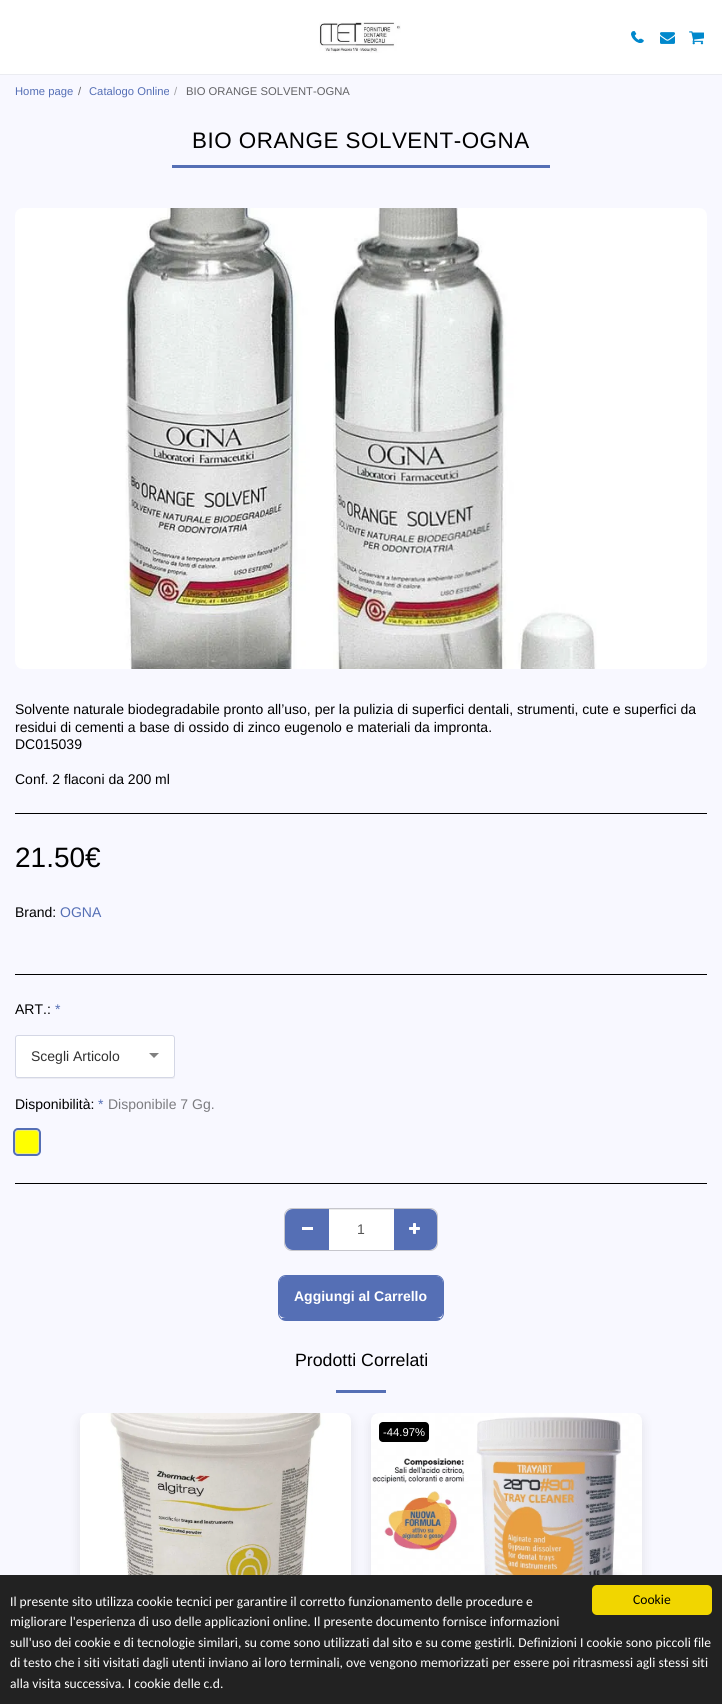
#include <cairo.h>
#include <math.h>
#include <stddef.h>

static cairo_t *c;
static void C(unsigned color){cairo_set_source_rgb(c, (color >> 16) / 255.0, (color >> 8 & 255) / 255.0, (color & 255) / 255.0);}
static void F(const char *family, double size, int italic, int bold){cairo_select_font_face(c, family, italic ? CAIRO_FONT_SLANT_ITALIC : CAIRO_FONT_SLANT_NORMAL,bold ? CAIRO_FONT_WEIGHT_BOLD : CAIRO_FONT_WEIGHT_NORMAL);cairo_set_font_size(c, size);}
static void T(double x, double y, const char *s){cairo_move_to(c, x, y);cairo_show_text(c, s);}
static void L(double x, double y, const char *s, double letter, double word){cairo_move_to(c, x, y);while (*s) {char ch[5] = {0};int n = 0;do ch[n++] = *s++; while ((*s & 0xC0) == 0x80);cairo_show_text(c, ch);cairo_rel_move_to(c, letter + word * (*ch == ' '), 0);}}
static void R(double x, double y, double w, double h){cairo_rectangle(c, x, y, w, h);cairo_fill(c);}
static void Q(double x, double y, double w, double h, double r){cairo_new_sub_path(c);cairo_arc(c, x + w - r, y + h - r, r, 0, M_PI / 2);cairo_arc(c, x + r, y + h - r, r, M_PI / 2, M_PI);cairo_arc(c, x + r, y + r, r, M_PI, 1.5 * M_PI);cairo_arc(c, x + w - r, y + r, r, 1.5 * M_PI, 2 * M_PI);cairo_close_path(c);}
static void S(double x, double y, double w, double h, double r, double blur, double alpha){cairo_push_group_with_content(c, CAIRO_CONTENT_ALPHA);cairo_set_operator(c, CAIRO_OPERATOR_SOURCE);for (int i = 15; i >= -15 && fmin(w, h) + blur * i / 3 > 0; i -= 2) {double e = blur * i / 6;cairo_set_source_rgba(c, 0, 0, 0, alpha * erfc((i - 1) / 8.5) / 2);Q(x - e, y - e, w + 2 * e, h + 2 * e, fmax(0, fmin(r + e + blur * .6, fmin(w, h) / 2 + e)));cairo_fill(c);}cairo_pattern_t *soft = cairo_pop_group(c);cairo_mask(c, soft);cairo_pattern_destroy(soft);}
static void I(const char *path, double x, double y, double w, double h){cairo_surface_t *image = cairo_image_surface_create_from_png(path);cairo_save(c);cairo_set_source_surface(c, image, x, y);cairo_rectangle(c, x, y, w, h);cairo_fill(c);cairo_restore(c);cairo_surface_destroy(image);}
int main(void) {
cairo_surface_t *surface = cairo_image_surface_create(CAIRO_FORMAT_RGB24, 722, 1704);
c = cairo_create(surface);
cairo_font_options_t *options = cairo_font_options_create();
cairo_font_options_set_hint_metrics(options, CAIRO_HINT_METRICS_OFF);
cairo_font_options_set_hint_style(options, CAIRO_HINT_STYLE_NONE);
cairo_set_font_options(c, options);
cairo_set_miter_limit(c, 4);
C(0xf8f8ff);
cairo_paint(c);
C(0xffffff);
R(0,0,722,74);
C(0xebecf1);
R(0,74,722,1);
I("1.png",319,22,82,31);
I("2.png",632,31,12,12);
I("3.png",631,31,12,12);
I("4.png",660,32,15,12);
I("5.png",689,31,15,14);
F("Liberation Sans",11.25,0,0);
C(0x556fb5);
T(15,95,"Home page");
C(0x636366);
T(78,95,"/");
C(0x556fb5);
T(89,95,"Catalogo Online");
C(0x9f9fa3);
T(174,95,"/");
C(0x636366);
T(186,95,"BIO ORANGE SOLVENT-OGNA");
C(0x556fb5);
R(172,165,378,3);
F("Liberation Sans",22.4,0,0);
C(0x000000);
L(192,148,"BIO ORANGE SOLVENT-OGNA",.5,0);
I("6.png",15,208,692,461);
F("Liberation Sans",14,0,0);
T(15,714,"Solvente naturale biodegradabile pronto all’uso, per la pulizia di superfici dentali, strumenti, cute e superfici da");
T(15,732,"residui di cementi a base di ossido di zinco eugenolo e materiali da impronta.");
T(15,749,"DC015039");
T(15,784,"Conf. 2 flaconi da 200 ml");
R(15,813,692,1);
F("Liberation Sans",28,0,0);
T(15,867,"21.50€");
F("Liberation Sans",14,0,0);
T(15,917,"Brand:");
C(0x556fb5);
T(60,917,"OGNA");
C(0x000000);
R(15,974,692,1);
T(15,1014,"ART.:");
C(0x556fb5);
T(55,1014,"*");
C(0xececf2);
cairo_new_path(c);
cairo_move_to(c,15,1075);
cairo_curve_to(c,15,1077,16,1079,18,1079);
cairo_line_to(c,173,1079);
cairo_curve_to(c,175,1079,175,1077,175,1075);
cairo_curve_to(c,175,1077,174,1078,172,1078);
cairo_line_to(c,18,1078);
cairo_curve_to(c,16,1078,15,1077,15,1075);
cairo_close_path(c);
cairo_fill(c);
C(0xffffff);
Q(15.5,1035.5,159,42,2.5);
cairo_fill_preserve(c);
C(0xd4d7e5);
cairo_set_line_width(c,1);
cairo_stroke(c);
C(0x303030);
T(31,1061,"Scegli Articolo");
C(0x808080);
cairo_new_path(c);
cairo_move_to(c,149,1053);
cairo_line_to(c,159,1053);
cairo_line_to(c,154,1058);
cairo_close_path(c);
cairo_fill(c);
C(0x000000);
T(15,1109,"Disponibilità:");
C(0x556fb5);
T(98,1109,"*");
C(0x7c7c80);
T(108,1109,"Disponibile 7 Gg.");
C(0xffff00);
Q(15,1130,24,24,4);
cairo_fill(c);
Q(15.5,1130.5,23,23,3.5);
cairo_set_source_rgba(c,0.867,0.867,0.867,0.5);
cairo_stroke(c);
Q(14,1129,26,26,4);
C(0x556fb5);
cairo_set_line_width(c,2);
cairo_stroke(c);
C(0x000000);
R(15,1183,692,1);
Q(284.5,1208.5,153,42,7.5);
C(0xc6c6cc);
cairo_set_line_width(c,1);
cairo_stroke(c);
C(0x556fb5);
cairo_new_path(c);
cairo_move_to(c,293,1209);
cairo_line_to(c,330,1209);
cairo_line_to(c,330,1250);
cairo_line_to(c,293,1250);
cairo_curve_to(c,288.5,1250,285,1246.5,285,1242);
cairo_line_to(c,285,1217);
cairo_curve_to(c,285,1212.5,288.5,1209,293,1209);
cairo_close_path(c);
cairo_fill(c);
C(0xffffff);
R(302,1227,11,3);
C(0x556fb5);
cairo_new_path(c);
cairo_move_to(c,393,1209);
cairo_line_to(c,429,1209);
cairo_curve_to(c,433.5,1209,437,1212.5,437,1217);
cairo_line_to(c,437,1242);
cairo_curve_to(c,437,1246.5,433.5,1250,429,1250);
cairo_line_to(c,393,1250);
cairo_close_path(c);
cairo_fill(c);
C(0xffffff);
R(329,1210,65,40);
C(0xececec);
R(329,1209,65,1);
C(0x555555);
T(357,1234,"1");
I("7.png",409,1223,11,11);
C(0x556fb5);
cairo_new_path(c);
cairo_move_to(c,286,1276);
cairo_line_to(c,436,1276);
cairo_curve_to(c,440,1276,443,1279,443,1283);
cairo_line_to(c,443,1313);
cairo_curve_to(c,443,1316,440,1318,436,1318);
cairo_line_to(c,286,1318);
cairo_curve_to(c,282,1318,279,1316,279,1313);
cairo_line_to(c,279,1283);
cairo_curve_to(c,279,1279,282,1276,286,1276);
cairo_close_path(c);
cairo_fill(c);
Q(278.5,1275.5,165,45,7.5);
cairo_stroke(c);
R(282,1318,158,2);
F("Liberation Sans",14,0,1);
C(0xffffff);
T(294,1301,"Aggiungi al Carrello");
F("Liberation Sans",17.75,0,0);
C(0x000000);
T(295,1366,"Prodotti Correlati");
C(0x556fb5);
R(336,1390,50,3);
cairo_save(c);
cairo_rectangle(c,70,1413,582,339);
cairo_clip(c);
C(0x818181);
S(80,1417,271,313,8,6,.2);
cairo_restore(c);
I("8.png",80,1413,271,162);
cairo_save(c);
cairo_rectangle(c,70,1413,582,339);
cairo_clip(c);
C(0x818181);
S(371,1417,271,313,8,6,.2);
cairo_restore(c);
I("9.png",371,1413,271,162);
C(0x000000);
Q(379,1422,50,20,4);
cairo_fill(c);
F("Liberation Sans",11.25,0,0);
C(0xffffff);
T(383,1436,"-44.97%");
C(0x222222);
R(0,1575,722,129);
C(0xf1d600);
Q(592,1585,120,30,5);
cairo_fill(c);
F("Carlito",13.6,0,0);
C(0x000000);
T(633,1604,"Cookie");
C(0xffffff);
T(10,1606,"Il presente sito utilizza cookie tecnici per garantire il corretto funzionamento delle procedure e");
T(10,1626,"migliorare l'esperienza di uso delle applicazioni online. Il presente documento fornisce informazioni");
T(10,1647,"sull'uso dei cookie e di tecnologie similari, su come sono utilizzati dal sito e su come gestirli. Definizioni I cookie sono piccoli file");
T(10,1667,"di testo che i siti visitati dagli utenti inviano ai loro terminali, ove vengono memorizzati per essere poi ritrasmessi agli stessi siti");
T(10,1688,"alla visita successiva. I cookie delle c.d.");
cairo_surface_write_to_png(surface, "o.png");
cairo_font_options_destroy(options);
cairo_destroy(c);
cairo_surface_destroy(surface);
return 0;
}
